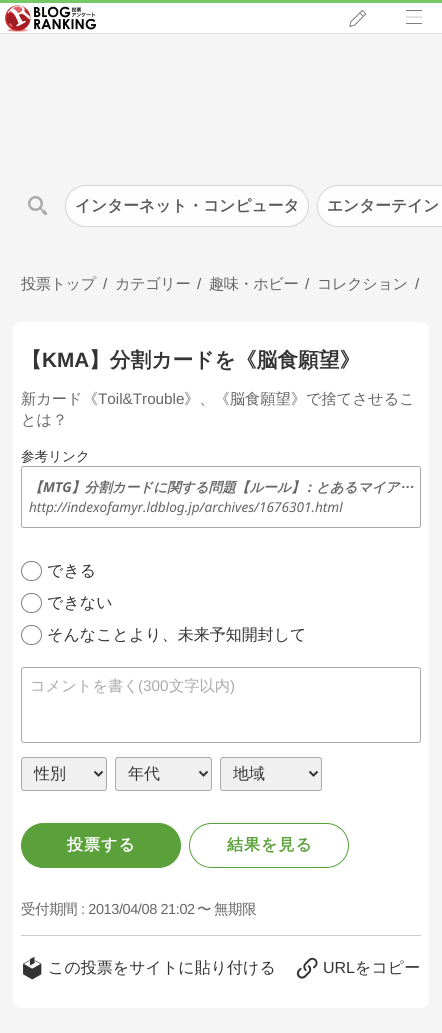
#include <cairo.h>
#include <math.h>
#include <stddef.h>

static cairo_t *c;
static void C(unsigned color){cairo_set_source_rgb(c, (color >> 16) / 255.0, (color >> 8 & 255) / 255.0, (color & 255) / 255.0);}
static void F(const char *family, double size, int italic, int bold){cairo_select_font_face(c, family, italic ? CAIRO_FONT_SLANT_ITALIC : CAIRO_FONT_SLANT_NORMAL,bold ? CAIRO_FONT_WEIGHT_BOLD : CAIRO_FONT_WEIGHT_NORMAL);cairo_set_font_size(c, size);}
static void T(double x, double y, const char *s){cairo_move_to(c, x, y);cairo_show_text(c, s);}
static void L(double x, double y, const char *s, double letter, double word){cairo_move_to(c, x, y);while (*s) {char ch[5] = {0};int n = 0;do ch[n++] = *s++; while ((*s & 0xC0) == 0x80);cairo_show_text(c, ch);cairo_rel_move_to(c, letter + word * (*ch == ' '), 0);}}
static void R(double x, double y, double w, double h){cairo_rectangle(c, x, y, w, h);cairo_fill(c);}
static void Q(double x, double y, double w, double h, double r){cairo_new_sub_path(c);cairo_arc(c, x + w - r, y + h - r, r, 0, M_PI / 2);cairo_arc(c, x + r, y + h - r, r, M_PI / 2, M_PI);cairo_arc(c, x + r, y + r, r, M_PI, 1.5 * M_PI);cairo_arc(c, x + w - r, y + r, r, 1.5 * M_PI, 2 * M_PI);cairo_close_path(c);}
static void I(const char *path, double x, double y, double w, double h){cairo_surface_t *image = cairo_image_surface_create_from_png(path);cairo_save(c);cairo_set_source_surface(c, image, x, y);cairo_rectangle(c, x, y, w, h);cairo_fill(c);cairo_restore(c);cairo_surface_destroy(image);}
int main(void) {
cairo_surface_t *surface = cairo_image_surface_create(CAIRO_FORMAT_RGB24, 442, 1033);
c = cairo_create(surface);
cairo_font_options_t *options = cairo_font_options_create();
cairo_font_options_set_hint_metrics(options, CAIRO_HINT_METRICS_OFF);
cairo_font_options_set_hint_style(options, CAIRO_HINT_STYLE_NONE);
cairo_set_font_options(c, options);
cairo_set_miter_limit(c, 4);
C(0xf5f5f5);
cairo_paint(c);
C(0x75c964);
R(0,0,442,3);
C(0xdddddd);
R(0,33,442,1);
C(0xffffff);
R(0,3,442,30);
I("1.png",5,5,91,27);
I("2.png",349,10,17,17);
I("3.png",406,10,16,14);
I("4.png",28,196,20,20);
C(0xfdfdfd);
Q(65.5,185.5,243,41,20.5);
cairo_fill_preserve(c);
C(0xd4d4d4);
cairo_set_line_width(c,1);
cairo_stroke(c);
F("WenQuanYi Zen Hei",15.75,0,1);
C(0x5a5a5a);
T(75,211,"インターネット・コンピュータ");
C(0xfdfdfd);
cairo_new_path(c);
cairo_move_to(c,338,185);
cairo_line_to(c,442,185);
cairo_line_to(c,442,227);
cairo_line_to(c,338,227);
cairo_curve_to(c,326.5,227,317,217.5,317,206);
cairo_curve_to(c,317,194.5,326.5,185,338,185);
cairo_close_path(c);
cairo_fill(c);
Q(317.5,185.5,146,41,20.5);
C(0xd4d4d4);
cairo_stroke(c);
C(0x5a5a5a);
T(327,211,"エンターテイン");
F("WenQuanYi Zen Hei Medium",15.25,0,0);
C(0x666666);
L(21,289,"投票トップ",-.5,0);
F("Liberation Sans",15.25,0,0);
C(0x5a5a5a);
L(103,289,"/",-.5,0);
F("WenQuanYi Zen Hei Medium",15.25,0,0);
C(0x666666);
L(115,289,"カテゴリー",-.5,0);
F("Liberation Sans",15.25,0,0);
C(0x5a5a5a);
L(197,289,"/",-.5,0);
F("WenQuanYi Zen Hei Medium",15.25,0,0);
C(0x666666);
L(209,289,"趣味・ホビー",-.5,0);
F("Liberation Sans",15.25,0,0);
C(0x5a5a5a);
L(305,289,"/",-.5,0);
F("WenQuanYi Zen Hei Medium",15.25,0,0);
C(0x666666);
L(317,289,"コレクション",-.5,0);
F("Liberation Sans",15.25,0,0);
C(0x5a5a5a);
L(415,289,"/",-.5,0);
C(0xffffff);
Q(13,322,416,686,8);
cairo_fill(c);
F("WenQuanYi Zen Hei",20.75,0,1);
C(0x333333);
T(21,367,"【");
F("Liberation Sans",20.75,0,1);
T(42,367,"KMA");
F("WenQuanYi Zen Hei",20.75,0,1);
T(89,367,"】分割カードを《脳食願望》");
F("WenQuanYi Zen Hei Medium",15.25,0,0);
C(0x666666);
T(21,404,"新カード《");
F("Liberation Sans",15.25,0,0);
T(98,404,"Toil&Trouble");
F("WenQuanYi Zen Hei Medium",15.25,0,0);
T(184,404,"》、《脳食願望》で捨てさせるこ");
T(21,425,"とは？");
F("WenQuanYi Zen Hei Medium",13.6,0,0);
C(0x333333);
T(21,461,"参考リンク");
Q(21.5,466.5,399,61,2);
C(0xaaaaaa);
cairo_stroke(c);
F("WenQuanYi Zen Hei",13.6,1,1);
C(0x666666);
T(29,492,"【");
F("Noto Sans",13.6,1,1);
T(43,492,"MTG");
F("WenQuanYi Zen Hei",13.6,1,1);
T(71,492,"】分割カードに関する問題【ルール】");
F("Noto Sans",13.6,1,1);
T(308,492,":");
F("WenQuanYi Zen Hei",13.6,1,1);
T(316,492,"とあるマイア…");
F("Noto Sans",13.6,1,0);
T(29,512,"http://indexofamyr.ldblog.jp/archives/1676301.html");
Q(21.5,561.5,20,19,9.5);
C(0x808080);
cairo_stroke(c);
F("WenQuanYi Zen Hei Medium",16,0,0);
C(0x333333);
T(47,576,"できる");
Q(21.5,593.5,20,19,9.5);
C(0x808080);
cairo_stroke(c);
C(0x333333);
T(47,608,"できない");
Q(21.5,625.5,20,19,9.5);
C(0x808080);
cairo_stroke(c);
C(0x333333);
T(47,640,"そんなことより、未来予知開封して");
Q(21.5,667.5,399,75,2.5);
C(0xaaaaaa);
cairo_stroke(c);
F("WenQuanYi Zen Hei Medium",15.25,0,0);
T(30,691,"コメントを書く");
F("Liberation Sans",15.25,0,0);
T(138,691,"(300");
F("WenQuanYi Zen Hei Medium",15.25,0,0);
T(169,691,"文字以内");
F("Liberation Sans",15.25,0,0);
T(230,691,")");
C(0xf0f0f0);
Q(21.5,757.5,85,33,2.5);
cairo_fill_preserve(c);
C(0xaaaaaa);
cairo_stroke(c);
cairo_new_path(c);
cairo_move_to(c,94.5,771.5);
cairo_line_to(c,98.5,775.5);
cairo_line_to(c,102.5,771.5);
C(0x333333);
cairo_set_line_width(c,2);
cairo_stroke(c);
F("WenQuanYi Zen Hei Medium",16,0,0);
T(34,779,"性別");
C(0xf0f0f0);
Q(115.5,757.5,96,33,2.5);
cairo_fill_preserve(c);
C(0xaaaaaa);
cairo_set_line_width(c,1);
cairo_stroke(c);
cairo_new_path(c);
cairo_move_to(c,199.5,771.5);
cairo_line_to(c,203.5,775.5);
cairo_line_to(c,207.5,771.5);
C(0x333333);
cairo_set_line_width(c,2);
cairo_stroke(c);
T(128,779,"年代");
C(0xf0f0f0);
Q(220.5,757.5,101,33,2.5);
cairo_fill_preserve(c);
C(0xaaaaaa);
cairo_set_line_width(c,1);
cairo_stroke(c);
cairo_new_path(c);
cairo_move_to(c,309.5,771.5);
cairo_line_to(c,313.5,775.5);
cairo_line_to(c,317.5,771.5);
C(0x333333);
cairo_set_line_width(c,2);
cairo_stroke(c);
T(233,779,"地域");
C(0x5aa13b);
Q(21.5,823.5,159,44,22);
cairo_fill_preserve(c);
cairo_set_line_width(c,1);
cairo_stroke(c);
F("WenQuanYi Zen Hei",16,0,1);
C(0xffffff);
L(67,850,"投票する",1,0);
Q(189.5,823.5,159,44,22);
C(0x5aa13b);
cairo_stroke(c);
L(227,850,"結果を見る",1,0);
F("WenQuanYi Zen Hei Medium",14.5,0,0);
C(0x666666);
L(21,914,"受付期間",-.4,0);
F("Liberation Sans",14.5,0,0);
L(81,914,": 2013/04/08 21:02",-.4,0);
F("WenQuanYi Zen Hei Medium",14.5,0,0);
L(197,914,"〜",-.4,0);
L(214,914,"無期限",-.4,0);
C(0xcccccc);
R(21,935,400,1);
I("5.png",23,957,19,23);
F("WenQuanYi Zen Hei Medium",16,0,0);
C(0x333333);
T(48,973,"この投票をサイトに貼り付ける");
I("6.png",296,957,22,22);
F("Liberation Sans",16,0,0);
T(323,973,"URL");
F("WenQuanYi Zen Hei Medium",16,0,0);
T(355,973,"をコピー");
cairo_surface_write_to_png(surface, "o.png");
cairo_font_options_destroy(options);
cairo_destroy(c);
cairo_surface_destroy(surface);
return 0;
}
